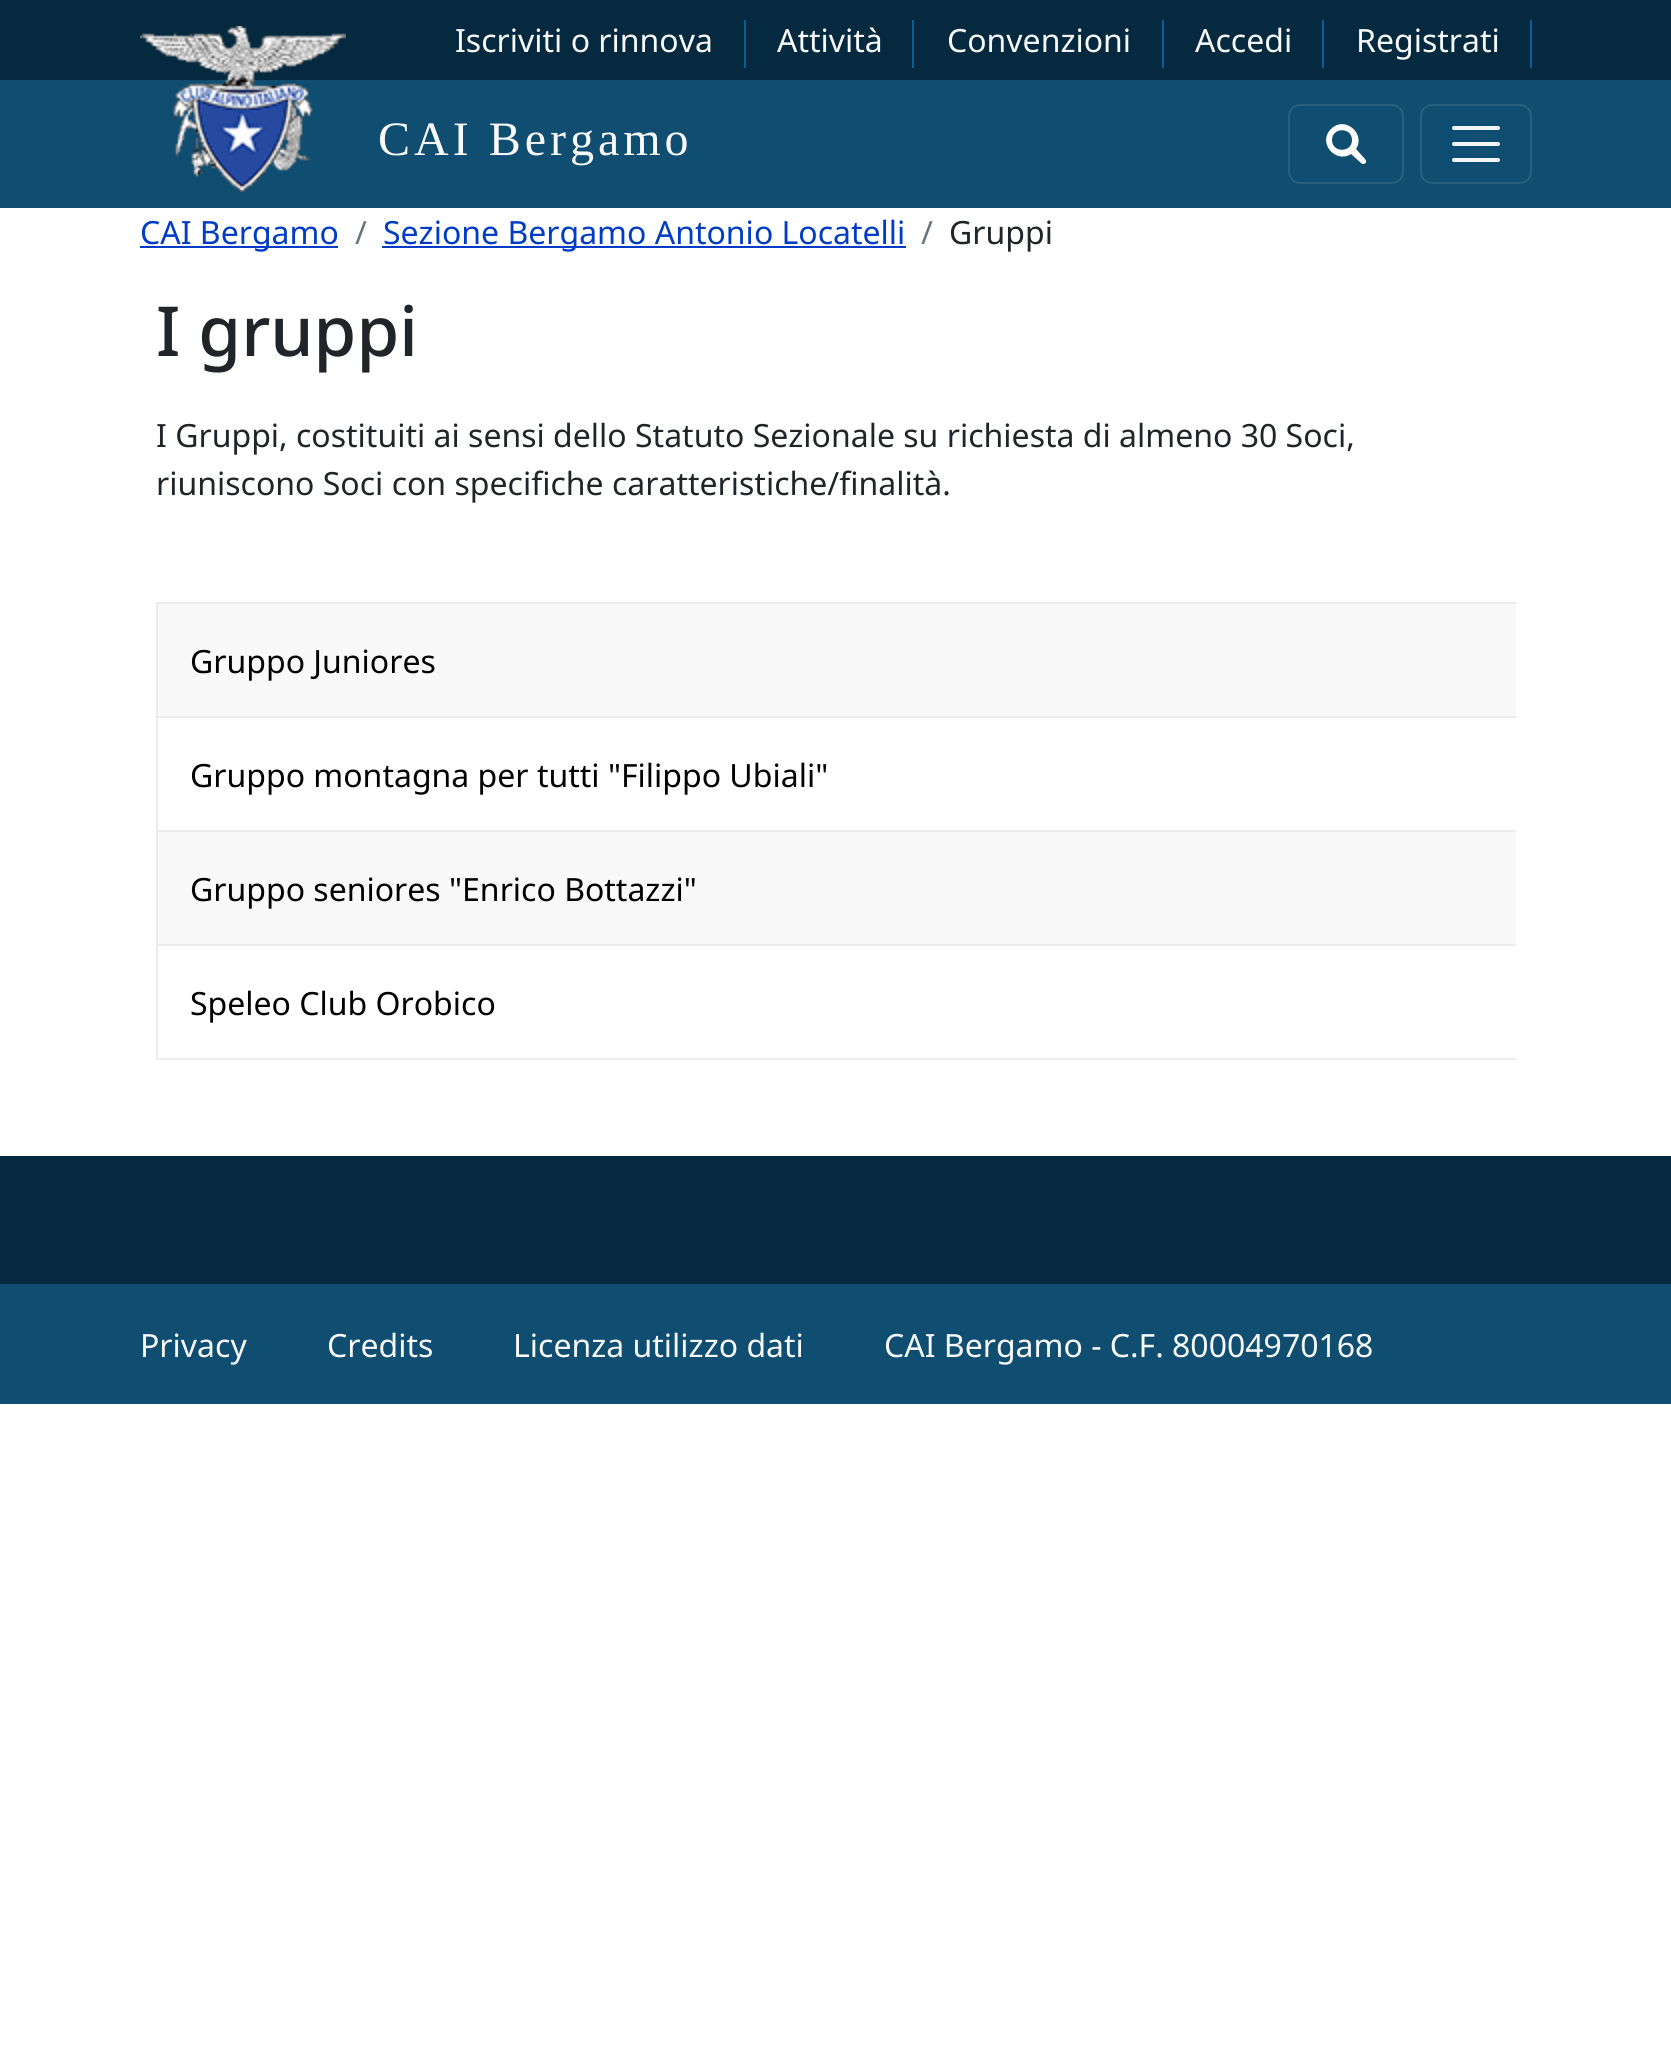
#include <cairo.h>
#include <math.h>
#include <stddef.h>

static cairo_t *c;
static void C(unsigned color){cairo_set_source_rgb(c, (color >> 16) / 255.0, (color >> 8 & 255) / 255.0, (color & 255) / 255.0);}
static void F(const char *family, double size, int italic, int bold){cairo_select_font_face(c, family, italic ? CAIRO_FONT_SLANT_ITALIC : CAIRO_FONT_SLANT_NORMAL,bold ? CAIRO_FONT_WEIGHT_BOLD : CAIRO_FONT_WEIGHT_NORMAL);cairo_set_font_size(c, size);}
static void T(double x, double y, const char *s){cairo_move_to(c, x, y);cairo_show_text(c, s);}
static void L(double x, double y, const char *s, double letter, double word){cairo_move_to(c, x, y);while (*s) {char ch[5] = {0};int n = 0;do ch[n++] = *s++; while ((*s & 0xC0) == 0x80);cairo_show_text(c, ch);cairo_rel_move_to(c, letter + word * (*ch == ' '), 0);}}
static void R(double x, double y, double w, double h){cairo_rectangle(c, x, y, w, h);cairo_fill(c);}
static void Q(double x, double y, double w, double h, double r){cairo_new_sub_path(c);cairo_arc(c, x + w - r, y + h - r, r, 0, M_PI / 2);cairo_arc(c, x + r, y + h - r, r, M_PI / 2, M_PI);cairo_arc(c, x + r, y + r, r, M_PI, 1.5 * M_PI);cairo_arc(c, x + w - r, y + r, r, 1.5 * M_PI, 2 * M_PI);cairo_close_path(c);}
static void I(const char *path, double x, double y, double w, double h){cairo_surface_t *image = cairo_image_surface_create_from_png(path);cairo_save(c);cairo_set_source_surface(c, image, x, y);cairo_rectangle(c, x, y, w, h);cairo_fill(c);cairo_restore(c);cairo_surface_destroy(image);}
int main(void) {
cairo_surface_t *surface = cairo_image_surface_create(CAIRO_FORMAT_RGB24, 1671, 2051);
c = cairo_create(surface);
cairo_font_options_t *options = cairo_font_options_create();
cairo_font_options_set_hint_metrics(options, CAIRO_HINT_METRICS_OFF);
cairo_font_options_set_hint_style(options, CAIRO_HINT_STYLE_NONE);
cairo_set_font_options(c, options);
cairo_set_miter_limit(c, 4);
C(0xffffff);
cairo_paint(c);
C(0x05293f);
R(0,0,1671,80);
F("Noto Sans",32,0,0);
C(0xf8f9fa);
T(455,52,"Iscriviti o rinnova");
C(0x0a6096);
R(744,20,2,48);
C(0xf8f9fa);
T(777,52,"Attività");
C(0x0a6096);
R(912,20,2,48);
C(0xf8f9fa);
T(947,52,"Convenzioni");
C(0x0a6096);
R(1162,20,2,48);
C(0xf8f9fa);
T(1195,52,"Accedi");
C(0x0a6096);
R(1322,20,2,48);
C(0xf8f9fa);
T(1356,52,"Registrati");
C(0x0a6096);
R(1530,20,2,48);
C(0x0f4d71);
R(0,80,1671,128);
I("1.png",140,26,206,166);
F("Liberation Serif",48,0,0);
C(0xf8f9fa);
L(378,155,"CAI Bergamo",4,0);
Q(1289,105,114,78,11);
C(0x275f7f);
cairo_stroke(c);
C(0xffffff);
cairo_new_path(c);
cairo_move_to(c,1365,159);
cairo_line_to(c,1356,149);
cairo_curve_to(c,1366,134,1345,115,1331,129);
cairo_curve_to(c,1317,143,1336,164,1351,154);
cairo_line_to(c,1361,163);
cairo_curve_to(c,1364,166,1368,162,1365,159);
cairo_close_path(c);
cairo_move_to(c,1332,140);
cairo_curve_to(c,1332,127,1352,127,1352,140);
cairo_curve_to(c,1352,153,1332,153,1332,140);
cairo_close_path(c);
cairo_fill(c);
Q(1421,105,110,78,11);
C(0x275f7f);
cairo_stroke(c);
cairo_new_path(c);
cairo_move_to(c,1454,128);
cairo_line_to(c,1498,128);
cairo_move_to(c,1454,144);
cairo_line_to(c,1498,144);
cairo_move_to(c,1454,160);
cairo_line_to(c,1498,160);
C(0xf3f6f8);
cairo_set_line_width(c,4);
cairo_set_line_cap(c,CAIRO_LINE_CAP_ROUND);
cairo_stroke(c);
C(0x003cc5);
R(140,246,198,2);
F("Noto Sans",32,0,0);
T(140,244,"CAI Bergamo");
C(0x6c757d);
T(355,244,"/");
C(0x003cc5);
R(382,246,524,2);
T(383,244,"Sezione Bergamo Antonio Locatelli");
C(0x6c757d);
T(921,244,"/");
C(0x212529);
T(949,244,"Gruppi");
F("Noto Sans Medium",69,0,0);
T(156,356,"I gruppi");
F("Noto Sans",32,0,0);
T(156,447,"I Gruppi, costituiti ai sensi dello Statuto Sezionale su richiesta di almeno 30 Soci,");
T(156,495,"riuniscono Soci con specifiche caratteristiche/finalità.");
C(0xececec);
R(156,602,1360,2);
R(156,1058,1360,2);
R(156,602,2,458);
R(156,716,1360,2);
C(0xf9f9f9);
R(158,604,1358,112);
C(0x000000);
T(190,673,"Gruppo Juniores");
C(0xececec);
R(156,830,1360,2);
C(0x000000);
T(190,787,"Gruppo montagna per tutti \"Filippo Ubiali\"");
C(0xececec);
R(156,944,1360,2);
C(0xf9f9f9);
R(158,832,1358,112);
C(0x000000);
T(190,901,"Gruppo seniores \"Enrico Bottazzi\"");
T(190,1015,"Speleo Club Orobico");
C(0x05293f);
R(0,1156,1671,128);
C(0x0f4d71);
R(0,1284,1671,120);
C(0xf8f9fa);
T(140,1357,"Privacy");
T(327,1357,"Credits");
T(513,1357,"Licenza utilizzo dati");
T(884,1357,"CAI Bergamo - C.F. 80004970168");
cairo_surface_write_to_png(surface, "o.png");
cairo_font_options_destroy(options);
cairo_destroy(c);
cairo_surface_destroy(surface);
return 0;
}
